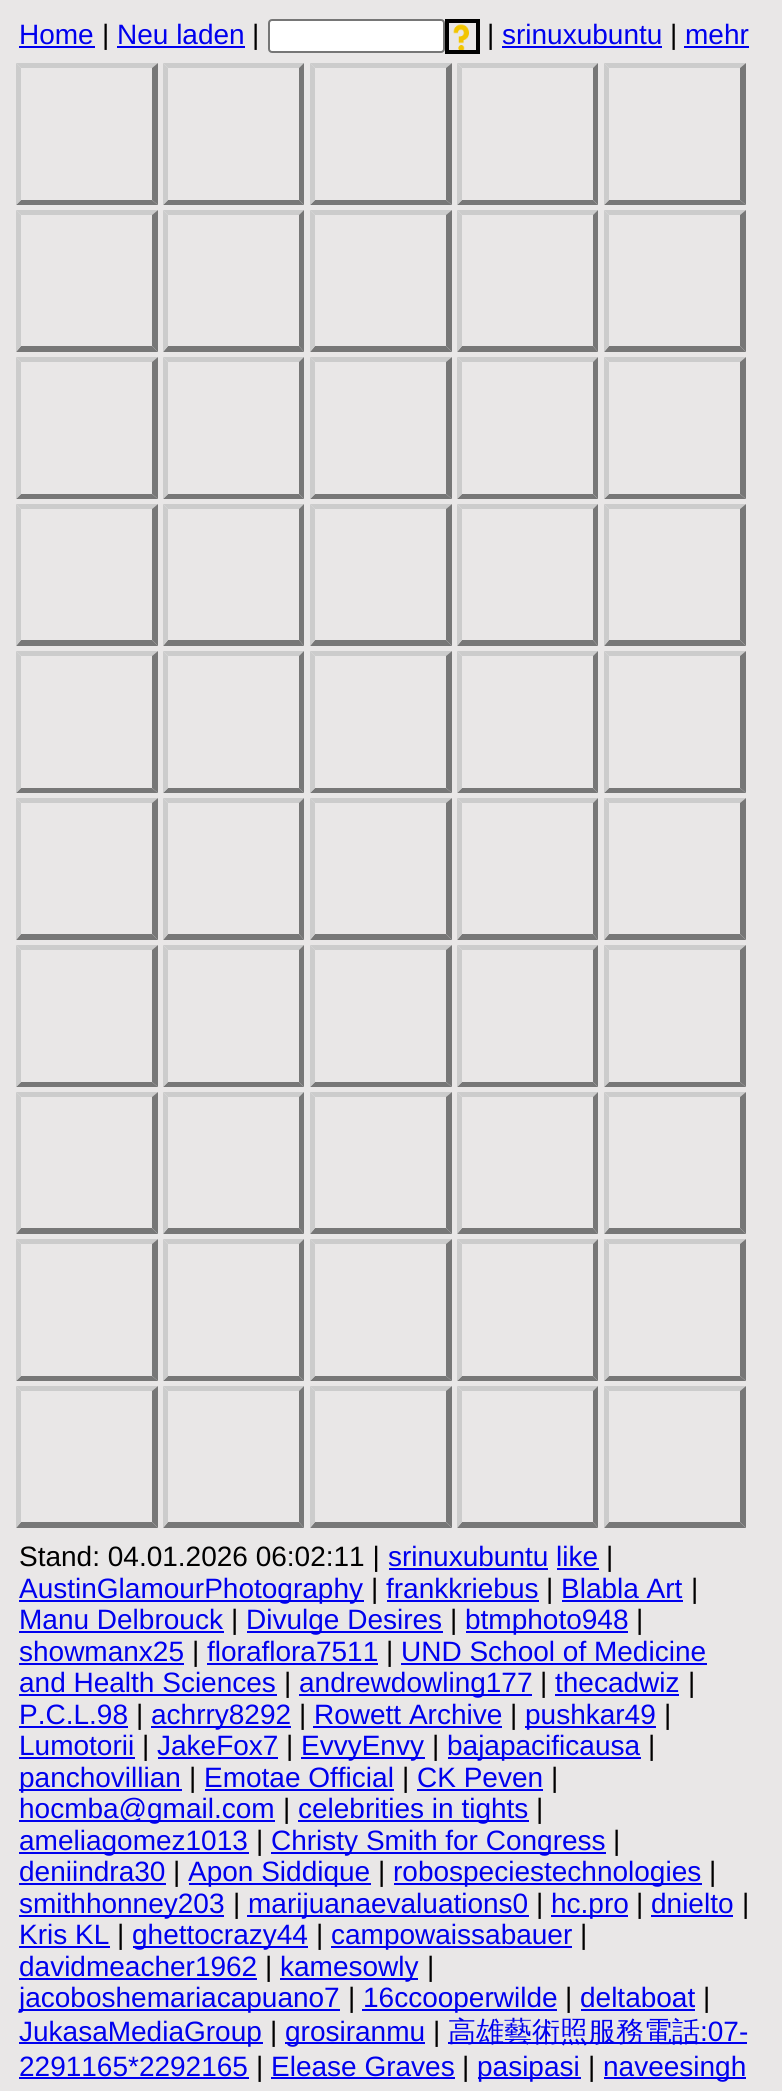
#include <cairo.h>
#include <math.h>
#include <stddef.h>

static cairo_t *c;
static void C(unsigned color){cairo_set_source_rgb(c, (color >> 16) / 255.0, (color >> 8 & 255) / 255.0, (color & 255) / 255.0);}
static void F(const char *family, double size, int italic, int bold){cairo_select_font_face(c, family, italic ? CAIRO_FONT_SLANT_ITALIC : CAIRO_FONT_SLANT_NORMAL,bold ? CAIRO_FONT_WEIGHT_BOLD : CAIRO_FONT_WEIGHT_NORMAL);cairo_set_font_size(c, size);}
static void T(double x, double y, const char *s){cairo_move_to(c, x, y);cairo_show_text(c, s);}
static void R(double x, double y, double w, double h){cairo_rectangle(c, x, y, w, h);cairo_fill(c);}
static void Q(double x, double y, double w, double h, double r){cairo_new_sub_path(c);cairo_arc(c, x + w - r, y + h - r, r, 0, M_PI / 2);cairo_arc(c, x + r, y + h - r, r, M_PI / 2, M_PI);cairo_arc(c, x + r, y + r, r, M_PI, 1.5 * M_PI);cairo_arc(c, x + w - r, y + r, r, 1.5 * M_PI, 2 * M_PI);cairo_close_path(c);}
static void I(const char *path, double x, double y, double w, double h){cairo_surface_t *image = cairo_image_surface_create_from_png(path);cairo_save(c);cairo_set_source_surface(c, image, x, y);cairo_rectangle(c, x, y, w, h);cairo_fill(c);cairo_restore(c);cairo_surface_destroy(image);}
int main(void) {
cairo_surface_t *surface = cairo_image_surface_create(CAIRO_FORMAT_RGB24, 782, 2091);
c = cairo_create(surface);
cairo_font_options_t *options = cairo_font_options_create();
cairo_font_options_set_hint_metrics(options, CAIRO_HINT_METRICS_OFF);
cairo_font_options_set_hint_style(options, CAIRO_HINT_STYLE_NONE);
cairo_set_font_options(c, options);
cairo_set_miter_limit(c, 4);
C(0xe9e7e7);
cairo_paint(c);
F("Liberation Sans",28,0,0);
C(0x0000ee);
T(19,44,"Home");
R(19,46,76,2);
C(0x000000);
T(102,44,"|");
C(0x0000ee);
T(117,44,"Neu laden");
R(117,46,128,2);
C(0x000000);
T(252,44,"|");
C(0xffffff);
Q(269,20,175,32,3);
cairo_fill_preserve(c);
C(0x767676);
cairo_stroke(c);
I("1.png",453,24,16,26);
cairo_rectangle(c,447,21,31,31);
C(0x000000);
cairo_set_line_width(c,4);
cairo_stroke(c);
T(487,44,"|");
C(0x0000ee);
T(502,44,"srinuxubuntu");
R(502,46,160,2);
C(0x000000);
T(670,44,"|");
C(0x0000ee);
T(685,44,"mehr");
R(684,46,65,2);
C(0xcccccc);
cairo_new_path(c);
cairo_move_to(c,16,63);
cairo_line_to(c,158,63);
cairo_line_to(c,152,68);
cairo_line_to(c,21,68);
cairo_close_path(c);
cairo_fill(c);
C(0x777777);
cairo_new_path(c);
cairo_move_to(c,158,63);
cairo_line_to(c,158,205);
cairo_line_to(c,152,200);
cairo_line_to(c,152,68);
cairo_close_path(c);
cairo_fill(c);
cairo_new_path(c);
cairo_move_to(c,158,205);
cairo_line_to(c,16,205);
cairo_line_to(c,21,200);
cairo_line_to(c,152,200);
cairo_close_path(c);
cairo_fill(c);
C(0xcccccc);
cairo_new_path(c);
cairo_move_to(c,16,205);
cairo_line_to(c,16,63);
cairo_line_to(c,21,68);
cairo_line_to(c,21,200);
cairo_close_path(c);
cairo_fill(c);
cairo_new_path(c);
cairo_move_to(c,163,63);
cairo_line_to(c,304,63);
cairo_line_to(c,299,68);
cairo_line_to(c,168,68);
cairo_close_path(c);
cairo_fill(c);
C(0x777777);
cairo_new_path(c);
cairo_move_to(c,304,63);
cairo_line_to(c,304,205);
cairo_line_to(c,299,200);
cairo_line_to(c,299,68);
cairo_close_path(c);
cairo_fill(c);
cairo_new_path(c);
cairo_move_to(c,304,205);
cairo_line_to(c,163,205);
cairo_line_to(c,168,200);
cairo_line_to(c,299,200);
cairo_close_path(c);
cairo_fill(c);
C(0xcccccc);
cairo_new_path(c);
cairo_move_to(c,163,205);
cairo_line_to(c,163,63);
cairo_line_to(c,168,68);
cairo_line_to(c,168,200);
cairo_close_path(c);
cairo_fill(c);
cairo_new_path(c);
cairo_move_to(c,310,63);
cairo_line_to(c,452,63);
cairo_line_to(c,446,68);
cairo_line_to(c,315,68);
cairo_close_path(c);
cairo_fill(c);
C(0x777777);
cairo_new_path(c);
cairo_move_to(c,452,63);
cairo_line_to(c,452,205);
cairo_line_to(c,446,200);
cairo_line_to(c,446,68);
cairo_close_path(c);
cairo_fill(c);
cairo_new_path(c);
cairo_move_to(c,452,205);
cairo_line_to(c,310,205);
cairo_line_to(c,315,200);
cairo_line_to(c,446,200);
cairo_close_path(c);
cairo_fill(c);
C(0xcccccc);
cairo_new_path(c);
cairo_move_to(c,310,205);
cairo_line_to(c,310,63);
cairo_line_to(c,315,68);
cairo_line_to(c,315,200);
cairo_close_path(c);
cairo_fill(c);
cairo_new_path(c);
cairo_move_to(c,457,63);
cairo_line_to(c,598,63);
cairo_line_to(c,593,68);
cairo_line_to(c,462,68);
cairo_close_path(c);
cairo_fill(c);
C(0x777777);
cairo_new_path(c);
cairo_move_to(c,598,63);
cairo_line_to(c,598,205);
cairo_line_to(c,593,200);
cairo_line_to(c,593,68);
cairo_close_path(c);
cairo_fill(c);
cairo_new_path(c);
cairo_move_to(c,598,205);
cairo_line_to(c,457,205);
cairo_line_to(c,462,200);
cairo_line_to(c,593,200);
cairo_close_path(c);
cairo_fill(c);
C(0xcccccc);
cairo_new_path(c);
cairo_move_to(c,457,205);
cairo_line_to(c,457,63);
cairo_line_to(c,462,68);
cairo_line_to(c,462,200);
cairo_close_path(c);
cairo_fill(c);
cairo_new_path(c);
cairo_move_to(c,604,63);
cairo_line_to(c,746,63);
cairo_line_to(c,740,68);
cairo_line_to(c,609,68);
cairo_close_path(c);
cairo_fill(c);
C(0x777777);
cairo_new_path(c);
cairo_move_to(c,746,63);
cairo_line_to(c,746,205);
cairo_line_to(c,740,200);
cairo_line_to(c,740,68);
cairo_close_path(c);
cairo_fill(c);
cairo_new_path(c);
cairo_move_to(c,746,205);
cairo_line_to(c,604,205);
cairo_line_to(c,609,200);
cairo_line_to(c,740,200);
cairo_close_path(c);
cairo_fill(c);
C(0xcccccc);
cairo_new_path(c);
cairo_move_to(c,604,205);
cairo_line_to(c,604,63);
cairo_line_to(c,609,68);
cairo_line_to(c,609,200);
cairo_close_path(c);
cairo_fill(c);
cairo_new_path(c);
cairo_move_to(c,16,210);
cairo_line_to(c,158,210);
cairo_line_to(c,152,215);
cairo_line_to(c,21,215);
cairo_close_path(c);
cairo_fill(c);
C(0x777777);
cairo_new_path(c);
cairo_move_to(c,158,210);
cairo_line_to(c,158,352);
cairo_line_to(c,152,346);
cairo_line_to(c,152,215);
cairo_close_path(c);
cairo_fill(c);
cairo_new_path(c);
cairo_move_to(c,158,352);
cairo_line_to(c,16,352);
cairo_line_to(c,21,346);
cairo_line_to(c,152,346);
cairo_close_path(c);
cairo_fill(c);
C(0xcccccc);
cairo_new_path(c);
cairo_move_to(c,16,352);
cairo_line_to(c,16,210);
cairo_line_to(c,21,215);
cairo_line_to(c,21,346);
cairo_close_path(c);
cairo_fill(c);
cairo_new_path(c);
cairo_move_to(c,163,210);
cairo_line_to(c,304,210);
cairo_line_to(c,299,215);
cairo_line_to(c,168,215);
cairo_close_path(c);
cairo_fill(c);
C(0x777777);
cairo_new_path(c);
cairo_move_to(c,304,210);
cairo_line_to(c,304,352);
cairo_line_to(c,299,346);
cairo_line_to(c,299,215);
cairo_close_path(c);
cairo_fill(c);
cairo_new_path(c);
cairo_move_to(c,304,352);
cairo_line_to(c,163,352);
cairo_line_to(c,168,346);
cairo_line_to(c,299,346);
cairo_close_path(c);
cairo_fill(c);
C(0xcccccc);
cairo_new_path(c);
cairo_move_to(c,163,352);
cairo_line_to(c,163,210);
cairo_line_to(c,168,215);
cairo_line_to(c,168,346);
cairo_close_path(c);
cairo_fill(c);
cairo_new_path(c);
cairo_move_to(c,310,210);
cairo_line_to(c,452,210);
cairo_line_to(c,446,215);
cairo_line_to(c,315,215);
cairo_close_path(c);
cairo_fill(c);
C(0x777777);
cairo_new_path(c);
cairo_move_to(c,452,210);
cairo_line_to(c,452,352);
cairo_line_to(c,446,346);
cairo_line_to(c,446,215);
cairo_close_path(c);
cairo_fill(c);
cairo_new_path(c);
cairo_move_to(c,452,352);
cairo_line_to(c,310,352);
cairo_line_to(c,315,346);
cairo_line_to(c,446,346);
cairo_close_path(c);
cairo_fill(c);
C(0xcccccc);
cairo_new_path(c);
cairo_move_to(c,310,352);
cairo_line_to(c,310,210);
cairo_line_to(c,315,215);
cairo_line_to(c,315,346);
cairo_close_path(c);
cairo_fill(c);
cairo_new_path(c);
cairo_move_to(c,457,210);
cairo_line_to(c,598,210);
cairo_line_to(c,593,215);
cairo_line_to(c,462,215);
cairo_close_path(c);
cairo_fill(c);
C(0x777777);
cairo_new_path(c);
cairo_move_to(c,598,210);
cairo_line_to(c,598,352);
cairo_line_to(c,593,346);
cairo_line_to(c,593,215);
cairo_close_path(c);
cairo_fill(c);
cairo_new_path(c);
cairo_move_to(c,598,352);
cairo_line_to(c,457,352);
cairo_line_to(c,462,346);
cairo_line_to(c,593,346);
cairo_close_path(c);
cairo_fill(c);
C(0xcccccc);
cairo_new_path(c);
cairo_move_to(c,457,352);
cairo_line_to(c,457,210);
cairo_line_to(c,462,215);
cairo_line_to(c,462,346);
cairo_close_path(c);
cairo_fill(c);
cairo_new_path(c);
cairo_move_to(c,604,210);
cairo_line_to(c,746,210);
cairo_line_to(c,740,215);
cairo_line_to(c,609,215);
cairo_close_path(c);
cairo_fill(c);
C(0x777777);
cairo_new_path(c);
cairo_move_to(c,746,210);
cairo_line_to(c,746,352);
cairo_line_to(c,740,346);
cairo_line_to(c,740,215);
cairo_close_path(c);
cairo_fill(c);
cairo_new_path(c);
cairo_move_to(c,746,352);
cairo_line_to(c,604,352);
cairo_line_to(c,609,346);
cairo_line_to(c,740,346);
cairo_close_path(c);
cairo_fill(c);
C(0xcccccc);
cairo_new_path(c);
cairo_move_to(c,604,352);
cairo_line_to(c,604,210);
cairo_line_to(c,609,215);
cairo_line_to(c,609,346);
cairo_close_path(c);
cairo_fill(c);
cairo_new_path(c);
cairo_move_to(c,16,357);
cairo_line_to(c,158,357);
cairo_line_to(c,152,362);
cairo_line_to(c,21,362);
cairo_close_path(c);
cairo_fill(c);
C(0x777777);
cairo_new_path(c);
cairo_move_to(c,158,357);
cairo_line_to(c,158,499);
cairo_line_to(c,152,494);
cairo_line_to(c,152,362);
cairo_close_path(c);
cairo_fill(c);
cairo_new_path(c);
cairo_move_to(c,158,499);
cairo_line_to(c,16,499);
cairo_line_to(c,21,494);
cairo_line_to(c,152,494);
cairo_close_path(c);
cairo_fill(c);
C(0xcccccc);
cairo_new_path(c);
cairo_move_to(c,16,499);
cairo_line_to(c,16,357);
cairo_line_to(c,21,362);
cairo_line_to(c,21,494);
cairo_close_path(c);
cairo_fill(c);
cairo_new_path(c);
cairo_move_to(c,163,357);
cairo_line_to(c,304,357);
cairo_line_to(c,299,362);
cairo_line_to(c,168,362);
cairo_close_path(c);
cairo_fill(c);
C(0x777777);
cairo_new_path(c);
cairo_move_to(c,304,357);
cairo_line_to(c,304,499);
cairo_line_to(c,299,494);
cairo_line_to(c,299,362);
cairo_close_path(c);
cairo_fill(c);
cairo_new_path(c);
cairo_move_to(c,304,499);
cairo_line_to(c,163,499);
cairo_line_to(c,168,494);
cairo_line_to(c,299,494);
cairo_close_path(c);
cairo_fill(c);
C(0xcccccc);
cairo_new_path(c);
cairo_move_to(c,163,499);
cairo_line_to(c,163,357);
cairo_line_to(c,168,362);
cairo_line_to(c,168,494);
cairo_close_path(c);
cairo_fill(c);
cairo_new_path(c);
cairo_move_to(c,310,357);
cairo_line_to(c,452,357);
cairo_line_to(c,446,362);
cairo_line_to(c,315,362);
cairo_close_path(c);
cairo_fill(c);
C(0x777777);
cairo_new_path(c);
cairo_move_to(c,452,357);
cairo_line_to(c,452,499);
cairo_line_to(c,446,494);
cairo_line_to(c,446,362);
cairo_close_path(c);
cairo_fill(c);
cairo_new_path(c);
cairo_move_to(c,452,499);
cairo_line_to(c,310,499);
cairo_line_to(c,315,494);
cairo_line_to(c,446,494);
cairo_close_path(c);
cairo_fill(c);
C(0xcccccc);
cairo_new_path(c);
cairo_move_to(c,310,499);
cairo_line_to(c,310,357);
cairo_line_to(c,315,362);
cairo_line_to(c,315,494);
cairo_close_path(c);
cairo_fill(c);
cairo_new_path(c);
cairo_move_to(c,457,357);
cairo_line_to(c,598,357);
cairo_line_to(c,593,362);
cairo_line_to(c,462,362);
cairo_close_path(c);
cairo_fill(c);
C(0x777777);
cairo_new_path(c);
cairo_move_to(c,598,357);
cairo_line_to(c,598,499);
cairo_line_to(c,593,494);
cairo_line_to(c,593,362);
cairo_close_path(c);
cairo_fill(c);
cairo_new_path(c);
cairo_move_to(c,598,499);
cairo_line_to(c,457,499);
cairo_line_to(c,462,494);
cairo_line_to(c,593,494);
cairo_close_path(c);
cairo_fill(c);
C(0xcccccc);
cairo_new_path(c);
cairo_move_to(c,457,499);
cairo_line_to(c,457,357);
cairo_line_to(c,462,362);
cairo_line_to(c,462,494);
cairo_close_path(c);
cairo_fill(c);
cairo_new_path(c);
cairo_move_to(c,604,357);
cairo_line_to(c,746,357);
cairo_line_to(c,740,362);
cairo_line_to(c,609,362);
cairo_close_path(c);
cairo_fill(c);
C(0x777777);
cairo_new_path(c);
cairo_move_to(c,746,357);
cairo_line_to(c,746,499);
cairo_line_to(c,740,494);
cairo_line_to(c,740,362);
cairo_close_path(c);
cairo_fill(c);
cairo_new_path(c);
cairo_move_to(c,746,499);
cairo_line_to(c,604,499);
cairo_line_to(c,609,494);
cairo_line_to(c,740,494);
cairo_close_path(c);
cairo_fill(c);
C(0xcccccc);
cairo_new_path(c);
cairo_move_to(c,604,499);
cairo_line_to(c,604,357);
cairo_line_to(c,609,362);
cairo_line_to(c,609,494);
cairo_close_path(c);
cairo_fill(c);
cairo_new_path(c);
cairo_move_to(c,16,504);
cairo_line_to(c,158,504);
cairo_line_to(c,152,509);
cairo_line_to(c,21,509);
cairo_close_path(c);
cairo_fill(c);
C(0x777777);
cairo_new_path(c);
cairo_move_to(c,158,504);
cairo_line_to(c,158,646);
cairo_line_to(c,152,640);
cairo_line_to(c,152,509);
cairo_close_path(c);
cairo_fill(c);
cairo_new_path(c);
cairo_move_to(c,158,646);
cairo_line_to(c,16,646);
cairo_line_to(c,21,640);
cairo_line_to(c,152,640);
cairo_close_path(c);
cairo_fill(c);
C(0xcccccc);
cairo_new_path(c);
cairo_move_to(c,16,646);
cairo_line_to(c,16,504);
cairo_line_to(c,21,509);
cairo_line_to(c,21,640);
cairo_close_path(c);
cairo_fill(c);
cairo_new_path(c);
cairo_move_to(c,163,504);
cairo_line_to(c,304,504);
cairo_line_to(c,299,509);
cairo_line_to(c,168,509);
cairo_close_path(c);
cairo_fill(c);
C(0x777777);
cairo_new_path(c);
cairo_move_to(c,304,504);
cairo_line_to(c,304,646);
cairo_line_to(c,299,640);
cairo_line_to(c,299,509);
cairo_close_path(c);
cairo_fill(c);
cairo_new_path(c);
cairo_move_to(c,304,646);
cairo_line_to(c,163,646);
cairo_line_to(c,168,640);
cairo_line_to(c,299,640);
cairo_close_path(c);
cairo_fill(c);
C(0xcccccc);
cairo_new_path(c);
cairo_move_to(c,163,646);
cairo_line_to(c,163,504);
cairo_line_to(c,168,509);
cairo_line_to(c,168,640);
cairo_close_path(c);
cairo_fill(c);
cairo_new_path(c);
cairo_move_to(c,310,504);
cairo_line_to(c,452,504);
cairo_line_to(c,446,509);
cairo_line_to(c,315,509);
cairo_close_path(c);
cairo_fill(c);
C(0x777777);
cairo_new_path(c);
cairo_move_to(c,452,504);
cairo_line_to(c,452,646);
cairo_line_to(c,446,640);
cairo_line_to(c,446,509);
cairo_close_path(c);
cairo_fill(c);
cairo_new_path(c);
cairo_move_to(c,452,646);
cairo_line_to(c,310,646);
cairo_line_to(c,315,640);
cairo_line_to(c,446,640);
cairo_close_path(c);
cairo_fill(c);
C(0xcccccc);
cairo_new_path(c);
cairo_move_to(c,310,646);
cairo_line_to(c,310,504);
cairo_line_to(c,315,509);
cairo_line_to(c,315,640);
cairo_close_path(c);
cairo_fill(c);
cairo_new_path(c);
cairo_move_to(c,457,504);
cairo_line_to(c,598,504);
cairo_line_to(c,593,509);
cairo_line_to(c,462,509);
cairo_close_path(c);
cairo_fill(c);
C(0x777777);
cairo_new_path(c);
cairo_move_to(c,598,504);
cairo_line_to(c,598,646);
cairo_line_to(c,593,640);
cairo_line_to(c,593,509);
cairo_close_path(c);
cairo_fill(c);
cairo_new_path(c);
cairo_move_to(c,598,646);
cairo_line_to(c,457,646);
cairo_line_to(c,462,640);
cairo_line_to(c,593,640);
cairo_close_path(c);
cairo_fill(c);
C(0xcccccc);
cairo_new_path(c);
cairo_move_to(c,457,646);
cairo_line_to(c,457,504);
cairo_line_to(c,462,509);
cairo_line_to(c,462,640);
cairo_close_path(c);
cairo_fill(c);
cairo_new_path(c);
cairo_move_to(c,604,504);
cairo_line_to(c,746,504);
cairo_line_to(c,740,509);
cairo_line_to(c,609,509);
cairo_close_path(c);
cairo_fill(c);
C(0x777777);
cairo_new_path(c);
cairo_move_to(c,746,504);
cairo_line_to(c,746,646);
cairo_line_to(c,740,640);
cairo_line_to(c,740,509);
cairo_close_path(c);
cairo_fill(c);
cairo_new_path(c);
cairo_move_to(c,746,646);
cairo_line_to(c,604,646);
cairo_line_to(c,609,640);
cairo_line_to(c,740,640);
cairo_close_path(c);
cairo_fill(c);
C(0xcccccc);
cairo_new_path(c);
cairo_move_to(c,604,646);
cairo_line_to(c,604,504);
cairo_line_to(c,609,509);
cairo_line_to(c,609,640);
cairo_close_path(c);
cairo_fill(c);
cairo_new_path(c);
cairo_move_to(c,16,651);
cairo_line_to(c,158,651);
cairo_line_to(c,152,656);
cairo_line_to(c,21,656);
cairo_close_path(c);
cairo_fill(c);
C(0x777777);
cairo_new_path(c);
cairo_move_to(c,158,651);
cairo_line_to(c,158,793);
cairo_line_to(c,152,788);
cairo_line_to(c,152,656);
cairo_close_path(c);
cairo_fill(c);
cairo_new_path(c);
cairo_move_to(c,158,793);
cairo_line_to(c,16,793);
cairo_line_to(c,21,788);
cairo_line_to(c,152,788);
cairo_close_path(c);
cairo_fill(c);
C(0xcccccc);
cairo_new_path(c);
cairo_move_to(c,16,793);
cairo_line_to(c,16,651);
cairo_line_to(c,21,656);
cairo_line_to(c,21,788);
cairo_close_path(c);
cairo_fill(c);
cairo_new_path(c);
cairo_move_to(c,163,651);
cairo_line_to(c,304,651);
cairo_line_to(c,299,656);
cairo_line_to(c,168,656);
cairo_close_path(c);
cairo_fill(c);
C(0x777777);
cairo_new_path(c);
cairo_move_to(c,304,651);
cairo_line_to(c,304,793);
cairo_line_to(c,299,788);
cairo_line_to(c,299,656);
cairo_close_path(c);
cairo_fill(c);
cairo_new_path(c);
cairo_move_to(c,304,793);
cairo_line_to(c,163,793);
cairo_line_to(c,168,788);
cairo_line_to(c,299,788);
cairo_close_path(c);
cairo_fill(c);
C(0xcccccc);
cairo_new_path(c);
cairo_move_to(c,163,793);
cairo_line_to(c,163,651);
cairo_line_to(c,168,656);
cairo_line_to(c,168,788);
cairo_close_path(c);
cairo_fill(c);
cairo_new_path(c);
cairo_move_to(c,310,651);
cairo_line_to(c,452,651);
cairo_line_to(c,446,656);
cairo_line_to(c,315,656);
cairo_close_path(c);
cairo_fill(c);
C(0x777777);
cairo_new_path(c);
cairo_move_to(c,452,651);
cairo_line_to(c,452,793);
cairo_line_to(c,446,788);
cairo_line_to(c,446,656);
cairo_close_path(c);
cairo_fill(c);
cairo_new_path(c);
cairo_move_to(c,452,793);
cairo_line_to(c,310,793);
cairo_line_to(c,315,788);
cairo_line_to(c,446,788);
cairo_close_path(c);
cairo_fill(c);
C(0xcccccc);
cairo_new_path(c);
cairo_move_to(c,310,793);
cairo_line_to(c,310,651);
cairo_line_to(c,315,656);
cairo_line_to(c,315,788);
cairo_close_path(c);
cairo_fill(c);
cairo_new_path(c);
cairo_move_to(c,457,651);
cairo_line_to(c,598,651);
cairo_line_to(c,593,656);
cairo_line_to(c,462,656);
cairo_close_path(c);
cairo_fill(c);
C(0x777777);
cairo_new_path(c);
cairo_move_to(c,598,651);
cairo_line_to(c,598,793);
cairo_line_to(c,593,788);
cairo_line_to(c,593,656);
cairo_close_path(c);
cairo_fill(c);
cairo_new_path(c);
cairo_move_to(c,598,793);
cairo_line_to(c,457,793);
cairo_line_to(c,462,788);
cairo_line_to(c,593,788);
cairo_close_path(c);
cairo_fill(c);
C(0xcccccc);
cairo_new_path(c);
cairo_move_to(c,457,793);
cairo_line_to(c,457,651);
cairo_line_to(c,462,656);
cairo_line_to(c,462,788);
cairo_close_path(c);
cairo_fill(c);
cairo_new_path(c);
cairo_move_to(c,604,651);
cairo_line_to(c,746,651);
cairo_line_to(c,740,656);
cairo_line_to(c,609,656);
cairo_close_path(c);
cairo_fill(c);
C(0x777777);
cairo_new_path(c);
cairo_move_to(c,746,651);
cairo_line_to(c,746,793);
cairo_line_to(c,740,788);
cairo_line_to(c,740,656);
cairo_close_path(c);
cairo_fill(c);
cairo_new_path(c);
cairo_move_to(c,746,793);
cairo_line_to(c,604,793);
cairo_line_to(c,609,788);
cairo_line_to(c,740,788);
cairo_close_path(c);
cairo_fill(c);
C(0xcccccc);
cairo_new_path(c);
cairo_move_to(c,604,793);
cairo_line_to(c,604,651);
cairo_line_to(c,609,656);
cairo_line_to(c,609,788);
cairo_close_path(c);
cairo_fill(c);
cairo_new_path(c);
cairo_move_to(c,16,798);
cairo_line_to(c,158,798);
cairo_line_to(c,152,803);
cairo_line_to(c,21,803);
cairo_close_path(c);
cairo_fill(c);
C(0x777777);
cairo_new_path(c);
cairo_move_to(c,158,798);
cairo_line_to(c,158,940);
cairo_line_to(c,152,934);
cairo_line_to(c,152,803);
cairo_close_path(c);
cairo_fill(c);
cairo_new_path(c);
cairo_move_to(c,158,940);
cairo_line_to(c,16,940);
cairo_line_to(c,21,934);
cairo_line_to(c,152,934);
cairo_close_path(c);
cairo_fill(c);
C(0xcccccc);
cairo_new_path(c);
cairo_move_to(c,16,940);
cairo_line_to(c,16,798);
cairo_line_to(c,21,803);
cairo_line_to(c,21,934);
cairo_close_path(c);
cairo_fill(c);
cairo_new_path(c);
cairo_move_to(c,163,798);
cairo_line_to(c,304,798);
cairo_line_to(c,299,803);
cairo_line_to(c,168,803);
cairo_close_path(c);
cairo_fill(c);
C(0x777777);
cairo_new_path(c);
cairo_move_to(c,304,798);
cairo_line_to(c,304,940);
cairo_line_to(c,299,934);
cairo_line_to(c,299,803);
cairo_close_path(c);
cairo_fill(c);
cairo_new_path(c);
cairo_move_to(c,304,940);
cairo_line_to(c,163,940);
cairo_line_to(c,168,934);
cairo_line_to(c,299,934);
cairo_close_path(c);
cairo_fill(c);
C(0xcccccc);
cairo_new_path(c);
cairo_move_to(c,163,940);
cairo_line_to(c,163,798);
cairo_line_to(c,168,803);
cairo_line_to(c,168,934);
cairo_close_path(c);
cairo_fill(c);
cairo_new_path(c);
cairo_move_to(c,310,798);
cairo_line_to(c,452,798);
cairo_line_to(c,446,803);
cairo_line_to(c,315,803);
cairo_close_path(c);
cairo_fill(c);
C(0x777777);
cairo_new_path(c);
cairo_move_to(c,452,798);
cairo_line_to(c,452,940);
cairo_line_to(c,446,934);
cairo_line_to(c,446,803);
cairo_close_path(c);
cairo_fill(c);
cairo_new_path(c);
cairo_move_to(c,452,940);
cairo_line_to(c,310,940);
cairo_line_to(c,315,934);
cairo_line_to(c,446,934);
cairo_close_path(c);
cairo_fill(c);
C(0xcccccc);
cairo_new_path(c);
cairo_move_to(c,310,940);
cairo_line_to(c,310,798);
cairo_line_to(c,315,803);
cairo_line_to(c,315,934);
cairo_close_path(c);
cairo_fill(c);
cairo_new_path(c);
cairo_move_to(c,457,798);
cairo_line_to(c,598,798);
cairo_line_to(c,593,803);
cairo_line_to(c,462,803);
cairo_close_path(c);
cairo_fill(c);
C(0x777777);
cairo_new_path(c);
cairo_move_to(c,598,798);
cairo_line_to(c,598,940);
cairo_line_to(c,593,934);
cairo_line_to(c,593,803);
cairo_close_path(c);
cairo_fill(c);
cairo_new_path(c);
cairo_move_to(c,598,940);
cairo_line_to(c,457,940);
cairo_line_to(c,462,934);
cairo_line_to(c,593,934);
cairo_close_path(c);
cairo_fill(c);
C(0xcccccc);
cairo_new_path(c);
cairo_move_to(c,457,940);
cairo_line_to(c,457,798);
cairo_line_to(c,462,803);
cairo_line_to(c,462,934);
cairo_close_path(c);
cairo_fill(c);
cairo_new_path(c);
cairo_move_to(c,604,798);
cairo_line_to(c,746,798);
cairo_line_to(c,740,803);
cairo_line_to(c,609,803);
cairo_close_path(c);
cairo_fill(c);
C(0x777777);
cairo_new_path(c);
cairo_move_to(c,746,798);
cairo_line_to(c,746,940);
cairo_line_to(c,740,934);
cairo_line_to(c,740,803);
cairo_close_path(c);
cairo_fill(c);
cairo_new_path(c);
cairo_move_to(c,746,940);
cairo_line_to(c,604,940);
cairo_line_to(c,609,934);
cairo_line_to(c,740,934);
cairo_close_path(c);
cairo_fill(c);
C(0xcccccc);
cairo_new_path(c);
cairo_move_to(c,604,940);
cairo_line_to(c,604,798);
cairo_line_to(c,609,803);
cairo_line_to(c,609,934);
cairo_close_path(c);
cairo_fill(c);
cairo_new_path(c);
cairo_move_to(c,16,945);
cairo_line_to(c,158,945);
cairo_line_to(c,152,950);
cairo_line_to(c,21,950);
cairo_close_path(c);
cairo_fill(c);
C(0x777777);
cairo_new_path(c);
cairo_move_to(c,158,945);
cairo_line_to(c,158,1087);
cairo_line_to(c,152,1082);
cairo_line_to(c,152,950);
cairo_close_path(c);
cairo_fill(c);
cairo_new_path(c);
cairo_move_to(c,158,1087);
cairo_line_to(c,16,1087);
cairo_line_to(c,21,1082);
cairo_line_to(c,152,1082);
cairo_close_path(c);
cairo_fill(c);
C(0xcccccc);
cairo_new_path(c);
cairo_move_to(c,16,1087);
cairo_line_to(c,16,945);
cairo_line_to(c,21,950);
cairo_line_to(c,21,1082);
cairo_close_path(c);
cairo_fill(c);
cairo_new_path(c);
cairo_move_to(c,163,945);
cairo_line_to(c,304,945);
cairo_line_to(c,299,950);
cairo_line_to(c,168,950);
cairo_close_path(c);
cairo_fill(c);
C(0x777777);
cairo_new_path(c);
cairo_move_to(c,304,945);
cairo_line_to(c,304,1087);
cairo_line_to(c,299,1082);
cairo_line_to(c,299,950);
cairo_close_path(c);
cairo_fill(c);
cairo_new_path(c);
cairo_move_to(c,304,1087);
cairo_line_to(c,163,1087);
cairo_line_to(c,168,1082);
cairo_line_to(c,299,1082);
cairo_close_path(c);
cairo_fill(c);
C(0xcccccc);
cairo_new_path(c);
cairo_move_to(c,163,1087);
cairo_line_to(c,163,945);
cairo_line_to(c,168,950);
cairo_line_to(c,168,1082);
cairo_close_path(c);
cairo_fill(c);
cairo_new_path(c);
cairo_move_to(c,310,945);
cairo_line_to(c,452,945);
cairo_line_to(c,446,950);
cairo_line_to(c,315,950);
cairo_close_path(c);
cairo_fill(c);
C(0x777777);
cairo_new_path(c);
cairo_move_to(c,452,945);
cairo_line_to(c,452,1087);
cairo_line_to(c,446,1082);
cairo_line_to(c,446,950);
cairo_close_path(c);
cairo_fill(c);
cairo_new_path(c);
cairo_move_to(c,452,1087);
cairo_line_to(c,310,1087);
cairo_line_to(c,315,1082);
cairo_line_to(c,446,1082);
cairo_close_path(c);
cairo_fill(c);
C(0xcccccc);
cairo_new_path(c);
cairo_move_to(c,310,1087);
cairo_line_to(c,310,945);
cairo_line_to(c,315,950);
cairo_line_to(c,315,1082);
cairo_close_path(c);
cairo_fill(c);
cairo_new_path(c);
cairo_move_to(c,457,945);
cairo_line_to(c,598,945);
cairo_line_to(c,593,950);
cairo_line_to(c,462,950);
cairo_close_path(c);
cairo_fill(c);
C(0x777777);
cairo_new_path(c);
cairo_move_to(c,598,945);
cairo_line_to(c,598,1087);
cairo_line_to(c,593,1082);
cairo_line_to(c,593,950);
cairo_close_path(c);
cairo_fill(c);
cairo_new_path(c);
cairo_move_to(c,598,1087);
cairo_line_to(c,457,1087);
cairo_line_to(c,462,1082);
cairo_line_to(c,593,1082);
cairo_close_path(c);
cairo_fill(c);
C(0xcccccc);
cairo_new_path(c);
cairo_move_to(c,457,1087);
cairo_line_to(c,457,945);
cairo_line_to(c,462,950);
cairo_line_to(c,462,1082);
cairo_close_path(c);
cairo_fill(c);
cairo_new_path(c);
cairo_move_to(c,604,945);
cairo_line_to(c,746,945);
cairo_line_to(c,740,950);
cairo_line_to(c,609,950);
cairo_close_path(c);
cairo_fill(c);
C(0x777777);
cairo_new_path(c);
cairo_move_to(c,746,945);
cairo_line_to(c,746,1087);
cairo_line_to(c,740,1082);
cairo_line_to(c,740,950);
cairo_close_path(c);
cairo_fill(c);
cairo_new_path(c);
cairo_move_to(c,746,1087);
cairo_line_to(c,604,1087);
cairo_line_to(c,609,1082);
cairo_line_to(c,740,1082);
cairo_close_path(c);
cairo_fill(c);
C(0xcccccc);
cairo_new_path(c);
cairo_move_to(c,604,1087);
cairo_line_to(c,604,945);
cairo_line_to(c,609,950);
cairo_line_to(c,609,1082);
cairo_close_path(c);
cairo_fill(c);
cairo_new_path(c);
cairo_move_to(c,16,1092);
cairo_line_to(c,158,1092);
cairo_line_to(c,152,1097);
cairo_line_to(c,21,1097);
cairo_close_path(c);
cairo_fill(c);
C(0x777777);
cairo_new_path(c);
cairo_move_to(c,158,1092);
cairo_line_to(c,158,1234);
cairo_line_to(c,152,1228);
cairo_line_to(c,152,1097);
cairo_close_path(c);
cairo_fill(c);
cairo_new_path(c);
cairo_move_to(c,158,1234);
cairo_line_to(c,16,1234);
cairo_line_to(c,21,1228);
cairo_line_to(c,152,1228);
cairo_close_path(c);
cairo_fill(c);
C(0xcccccc);
cairo_new_path(c);
cairo_move_to(c,16,1234);
cairo_line_to(c,16,1092);
cairo_line_to(c,21,1097);
cairo_line_to(c,21,1228);
cairo_close_path(c);
cairo_fill(c);
cairo_new_path(c);
cairo_move_to(c,163,1092);
cairo_line_to(c,304,1092);
cairo_line_to(c,299,1097);
cairo_line_to(c,168,1097);
cairo_close_path(c);
cairo_fill(c);
C(0x777777);
cairo_new_path(c);
cairo_move_to(c,304,1092);
cairo_line_to(c,304,1234);
cairo_line_to(c,299,1228);
cairo_line_to(c,299,1097);
cairo_close_path(c);
cairo_fill(c);
cairo_new_path(c);
cairo_move_to(c,304,1234);
cairo_line_to(c,163,1234);
cairo_line_to(c,168,1228);
cairo_line_to(c,299,1228);
cairo_close_path(c);
cairo_fill(c);
C(0xcccccc);
cairo_new_path(c);
cairo_move_to(c,163,1234);
cairo_line_to(c,163,1092);
cairo_line_to(c,168,1097);
cairo_line_to(c,168,1228);
cairo_close_path(c);
cairo_fill(c);
cairo_new_path(c);
cairo_move_to(c,310,1092);
cairo_line_to(c,452,1092);
cairo_line_to(c,446,1097);
cairo_line_to(c,315,1097);
cairo_close_path(c);
cairo_fill(c);
C(0x777777);
cairo_new_path(c);
cairo_move_to(c,452,1092);
cairo_line_to(c,452,1234);
cairo_line_to(c,446,1228);
cairo_line_to(c,446,1097);
cairo_close_path(c);
cairo_fill(c);
cairo_new_path(c);
cairo_move_to(c,452,1234);
cairo_line_to(c,310,1234);
cairo_line_to(c,315,1228);
cairo_line_to(c,446,1228);
cairo_close_path(c);
cairo_fill(c);
C(0xcccccc);
cairo_new_path(c);
cairo_move_to(c,310,1234);
cairo_line_to(c,310,1092);
cairo_line_to(c,315,1097);
cairo_line_to(c,315,1228);
cairo_close_path(c);
cairo_fill(c);
cairo_new_path(c);
cairo_move_to(c,457,1092);
cairo_line_to(c,598,1092);
cairo_line_to(c,593,1097);
cairo_line_to(c,462,1097);
cairo_close_path(c);
cairo_fill(c);
C(0x777777);
cairo_new_path(c);
cairo_move_to(c,598,1092);
cairo_line_to(c,598,1234);
cairo_line_to(c,593,1228);
cairo_line_to(c,593,1097);
cairo_close_path(c);
cairo_fill(c);
cairo_new_path(c);
cairo_move_to(c,598,1234);
cairo_line_to(c,457,1234);
cairo_line_to(c,462,1228);
cairo_line_to(c,593,1228);
cairo_close_path(c);
cairo_fill(c);
C(0xcccccc);
cairo_new_path(c);
cairo_move_to(c,457,1234);
cairo_line_to(c,457,1092);
cairo_line_to(c,462,1097);
cairo_line_to(c,462,1228);
cairo_close_path(c);
cairo_fill(c);
cairo_new_path(c);
cairo_move_to(c,604,1092);
cairo_line_to(c,746,1092);
cairo_line_to(c,740,1097);
cairo_line_to(c,609,1097);
cairo_close_path(c);
cairo_fill(c);
C(0x777777);
cairo_new_path(c);
cairo_move_to(c,746,1092);
cairo_line_to(c,746,1234);
cairo_line_to(c,740,1228);
cairo_line_to(c,740,1097);
cairo_close_path(c);
cairo_fill(c);
cairo_new_path(c);
cairo_move_to(c,746,1234);
cairo_line_to(c,604,1234);
cairo_line_to(c,609,1228);
cairo_line_to(c,740,1228);
cairo_close_path(c);
cairo_fill(c);
C(0xcccccc);
cairo_new_path(c);
cairo_move_to(c,604,1234);
cairo_line_to(c,604,1092);
cairo_line_to(c,609,1097);
cairo_line_to(c,609,1228);
cairo_close_path(c);
cairo_fill(c);
cairo_new_path(c);
cairo_move_to(c,16,1239);
cairo_line_to(c,158,1239);
cairo_line_to(c,152,1244);
cairo_line_to(c,21,1244);
cairo_close_path(c);
cairo_fill(c);
C(0x777777);
cairo_new_path(c);
cairo_move_to(c,158,1239);
cairo_line_to(c,158,1381);
cairo_line_to(c,152,1376);
cairo_line_to(c,152,1244);
cairo_close_path(c);
cairo_fill(c);
cairo_new_path(c);
cairo_move_to(c,158,1381);
cairo_line_to(c,16,1381);
cairo_line_to(c,21,1376);
cairo_line_to(c,152,1376);
cairo_close_path(c);
cairo_fill(c);
C(0xcccccc);
cairo_new_path(c);
cairo_move_to(c,16,1381);
cairo_line_to(c,16,1239);
cairo_line_to(c,21,1244);
cairo_line_to(c,21,1376);
cairo_close_path(c);
cairo_fill(c);
cairo_new_path(c);
cairo_move_to(c,163,1239);
cairo_line_to(c,304,1239);
cairo_line_to(c,299,1244);
cairo_line_to(c,168,1244);
cairo_close_path(c);
cairo_fill(c);
C(0x777777);
cairo_new_path(c);
cairo_move_to(c,304,1239);
cairo_line_to(c,304,1381);
cairo_line_to(c,299,1376);
cairo_line_to(c,299,1244);
cairo_close_path(c);
cairo_fill(c);
cairo_new_path(c);
cairo_move_to(c,304,1381);
cairo_line_to(c,163,1381);
cairo_line_to(c,168,1376);
cairo_line_to(c,299,1376);
cairo_close_path(c);
cairo_fill(c);
C(0xcccccc);
cairo_new_path(c);
cairo_move_to(c,163,1381);
cairo_line_to(c,163,1239);
cairo_line_to(c,168,1244);
cairo_line_to(c,168,1376);
cairo_close_path(c);
cairo_fill(c);
cairo_new_path(c);
cairo_move_to(c,310,1239);
cairo_line_to(c,452,1239);
cairo_line_to(c,446,1244);
cairo_line_to(c,315,1244);
cairo_close_path(c);
cairo_fill(c);
C(0x777777);
cairo_new_path(c);
cairo_move_to(c,452,1239);
cairo_line_to(c,452,1381);
cairo_line_to(c,446,1376);
cairo_line_to(c,446,1244);
cairo_close_path(c);
cairo_fill(c);
cairo_new_path(c);
cairo_move_to(c,452,1381);
cairo_line_to(c,310,1381);
cairo_line_to(c,315,1376);
cairo_line_to(c,446,1376);
cairo_close_path(c);
cairo_fill(c);
C(0xcccccc);
cairo_new_path(c);
cairo_move_to(c,310,1381);
cairo_line_to(c,310,1239);
cairo_line_to(c,315,1244);
cairo_line_to(c,315,1376);
cairo_close_path(c);
cairo_fill(c);
cairo_new_path(c);
cairo_move_to(c,457,1239);
cairo_line_to(c,598,1239);
cairo_line_to(c,593,1244);
cairo_line_to(c,462,1244);
cairo_close_path(c);
cairo_fill(c);
C(0x777777);
cairo_new_path(c);
cairo_move_to(c,598,1239);
cairo_line_to(c,598,1381);
cairo_line_to(c,593,1376);
cairo_line_to(c,593,1244);
cairo_close_path(c);
cairo_fill(c);
cairo_new_path(c);
cairo_move_to(c,598,1381);
cairo_line_to(c,457,1381);
cairo_line_to(c,462,1376);
cairo_line_to(c,593,1376);
cairo_close_path(c);
cairo_fill(c);
C(0xcccccc);
cairo_new_path(c);
cairo_move_to(c,457,1381);
cairo_line_to(c,457,1239);
cairo_line_to(c,462,1244);
cairo_line_to(c,462,1376);
cairo_close_path(c);
cairo_fill(c);
cairo_new_path(c);
cairo_move_to(c,604,1239);
cairo_line_to(c,746,1239);
cairo_line_to(c,740,1244);
cairo_line_to(c,609,1244);
cairo_close_path(c);
cairo_fill(c);
C(0x777777);
cairo_new_path(c);
cairo_move_to(c,746,1239);
cairo_line_to(c,746,1381);
cairo_line_to(c,740,1376);
cairo_line_to(c,740,1244);
cairo_close_path(c);
cairo_fill(c);
cairo_new_path(c);
cairo_move_to(c,746,1381);
cairo_line_to(c,604,1381);
cairo_line_to(c,609,1376);
cairo_line_to(c,740,1376);
cairo_close_path(c);
cairo_fill(c);
C(0xcccccc);
cairo_new_path(c);
cairo_move_to(c,604,1381);
cairo_line_to(c,604,1239);
cairo_line_to(c,609,1244);
cairo_line_to(c,609,1376);
cairo_close_path(c);
cairo_fill(c);
cairo_new_path(c);
cairo_move_to(c,16,1386);
cairo_line_to(c,158,1386);
cairo_line_to(c,152,1391);
cairo_line_to(c,21,1391);
cairo_close_path(c);
cairo_fill(c);
C(0x777777);
cairo_new_path(c);
cairo_move_to(c,158,1386);
cairo_line_to(c,158,1528);
cairo_line_to(c,152,1522);
cairo_line_to(c,152,1391);
cairo_close_path(c);
cairo_fill(c);
cairo_new_path(c);
cairo_move_to(c,158,1528);
cairo_line_to(c,16,1528);
cairo_line_to(c,21,1522);
cairo_line_to(c,152,1522);
cairo_close_path(c);
cairo_fill(c);
C(0xcccccc);
cairo_new_path(c);
cairo_move_to(c,16,1528);
cairo_line_to(c,16,1386);
cairo_line_to(c,21,1391);
cairo_line_to(c,21,1522);
cairo_close_path(c);
cairo_fill(c);
cairo_new_path(c);
cairo_move_to(c,163,1386);
cairo_line_to(c,304,1386);
cairo_line_to(c,299,1391);
cairo_line_to(c,168,1391);
cairo_close_path(c);
cairo_fill(c);
C(0x777777);
cairo_new_path(c);
cairo_move_to(c,304,1386);
cairo_line_to(c,304,1528);
cairo_line_to(c,299,1522);
cairo_line_to(c,299,1391);
cairo_close_path(c);
cairo_fill(c);
cairo_new_path(c);
cairo_move_to(c,304,1528);
cairo_line_to(c,163,1528);
cairo_line_to(c,168,1522);
cairo_line_to(c,299,1522);
cairo_close_path(c);
cairo_fill(c);
C(0xcccccc);
cairo_new_path(c);
cairo_move_to(c,163,1528);
cairo_line_to(c,163,1386);
cairo_line_to(c,168,1391);
cairo_line_to(c,168,1522);
cairo_close_path(c);
cairo_fill(c);
cairo_new_path(c);
cairo_move_to(c,310,1386);
cairo_line_to(c,452,1386);
cairo_line_to(c,446,1391);
cairo_line_to(c,315,1391);
cairo_close_path(c);
cairo_fill(c);
C(0x777777);
cairo_new_path(c);
cairo_move_to(c,452,1386);
cairo_line_to(c,452,1528);
cairo_line_to(c,446,1522);
cairo_line_to(c,446,1391);
cairo_close_path(c);
cairo_fill(c);
cairo_new_path(c);
cairo_move_to(c,452,1528);
cairo_line_to(c,310,1528);
cairo_line_to(c,315,1522);
cairo_line_to(c,446,1522);
cairo_close_path(c);
cairo_fill(c);
C(0xcccccc);
cairo_new_path(c);
cairo_move_to(c,310,1528);
cairo_line_to(c,310,1386);
cairo_line_to(c,315,1391);
cairo_line_to(c,315,1522);
cairo_close_path(c);
cairo_fill(c);
cairo_new_path(c);
cairo_move_to(c,457,1386);
cairo_line_to(c,598,1386);
cairo_line_to(c,593,1391);
cairo_line_to(c,462,1391);
cairo_close_path(c);
cairo_fill(c);
C(0x777777);
cairo_new_path(c);
cairo_move_to(c,598,1386);
cairo_line_to(c,598,1528);
cairo_line_to(c,593,1522);
cairo_line_to(c,593,1391);
cairo_close_path(c);
cairo_fill(c);
cairo_new_path(c);
cairo_move_to(c,598,1528);
cairo_line_to(c,457,1528);
cairo_line_to(c,462,1522);
cairo_line_to(c,593,1522);
cairo_close_path(c);
cairo_fill(c);
C(0xcccccc);
cairo_new_path(c);
cairo_move_to(c,457,1528);
cairo_line_to(c,457,1386);
cairo_line_to(c,462,1391);
cairo_line_to(c,462,1522);
cairo_close_path(c);
cairo_fill(c);
cairo_new_path(c);
cairo_move_to(c,604,1386);
cairo_line_to(c,746,1386);
cairo_line_to(c,740,1391);
cairo_line_to(c,609,1391);
cairo_close_path(c);
cairo_fill(c);
C(0x777777);
cairo_new_path(c);
cairo_move_to(c,746,1386);
cairo_line_to(c,746,1528);
cairo_line_to(c,740,1522);
cairo_line_to(c,740,1391);
cairo_close_path(c);
cairo_fill(c);
cairo_new_path(c);
cairo_move_to(c,746,1528);
cairo_line_to(c,604,1528);
cairo_line_to(c,609,1522);
cairo_line_to(c,740,1522);
cairo_close_path(c);
cairo_fill(c);
C(0xcccccc);
cairo_new_path(c);
cairo_move_to(c,604,1528);
cairo_line_to(c,604,1386);
cairo_line_to(c,609,1391);
cairo_line_to(c,609,1522);
cairo_close_path(c);
cairo_fill(c);
C(0x000000);
T(19,1566,"Stand: 04.01.2026 06:02:11 |");
C(0x0000ee);
T(388,1566,"srinuxubuntu like");
R(389,1568,159,2);
C(0x000000);
T(606,1566,"|");
C(0x0000ee);
R(557,1568,42,2);
R(19,1600,345,2);
T(19,1598,"AustinGlamourPhotography");
C(0x000000);
T(371,1598,"|");
C(0x0000ee);
T(386,1598,"frankkriebus");
R(387,1600,152,2);
C(0x000000);
T(546,1598,"|");
C(0x0000ee);
T(561,1598,"Blabla Art");
R(562,1600,121,2);
C(0x000000);
T(691,1598,"|");
C(0x0000ee);
T(19,1629,"Manu Delbrouck");
R(19,1631,205,2);
C(0x000000);
T(231,1629,"|");
C(0x0000ee);
R(247,1631,196,2);
T(246,1629,"Divulge Desires");
C(0x000000);
T(450,1629,"|");
C(0x0000ee);
R(466,1631,162,2);
T(465,1629,"btmphoto948");
C(0x000000);
T(636,1629,"|");
C(0x0000ee);
T(19,1661,"showmanx25");
R(19,1663,165,2);
C(0x000000);
T(192,1661,"|");
C(0x0000ee);
T(207,1661,"floraflora7511");
R(207,1663,171,2);
C(0x000000);
T(386,1661,"|");
C(0x0000ee);
T(401,1661,"UND School of Medicine");
R(401,1663,306,2);
T(19,1692,"and Health Sciences");
R(19,1694,258,2);
C(0x000000);
T(284,1692,"|");
C(0x0000ee);
R(299,1694,233,2);
T(299,1692,"andrewdowling177");
C(0x000000);
T(540,1692,"|");
C(0x0000ee);
T(555,1692,"thecadwiz");
R(555,1694,124,2);
C(0x000000);
T(688,1692,"|");
C(0x0000ee);
T(19,1724,"P.C.L.98");
R(19,1726,109,2);
C(0x000000);
T(136,1724,"|");
C(0x0000ee);
R(151,1726,140,2);
T(151,1724,"achrry8292");
C(0x000000);
T(299,1724,"|");
C(0x0000ee);
T(314,1724,"Rowett Archive");
R(313,1726,189,2);
C(0x000000);
T(510,1724,"|");
C(0x0000ee);
R(525,1726,131,2);
T(525,1724,"pushkar49");
C(0x000000);
T(664,1724,"|");
C(0x0000ee);
T(19,1755,"Lumotorii");
R(19,1757,116,2);
C(0x000000);
T(142,1755,"|");
C(0x0000ee);
T(157,1755,"JakeFox7");
R(158,1757,120,2);
C(0x000000);
T(286,1755,"|");
C(0x0000ee);
R(301,1757,124,2);
T(301,1755,"EvvyEnvy");
C(0x000000);
T(432,1755,"|");
C(0x0000ee);
R(448,1757,193,2);
T(447,1755,"bajapacificausa");
C(0x000000);
T(648,1755,"|");
C(0x0000ee);
R(19,1789,163,2);
T(19,1787,"panchovillian");
C(0x000000);
T(189,1787,"|");
C(0x0000ee);
T(204,1787,"Emotae Official");
R(205,1789,189,2);
C(0x000000);
T(402,1787,"|");
C(0x0000ee);
T(417,1787,"CK Peven");
R(417,1789,126,2);
C(0x000000);
T(551,1787,"|");
C(0x0000ee);
R(19,1820,256,2);
T(19,1818,"hocmba@gmail.com");
C(0x000000);
T(283,1818,"|");
C(0x0000ee);
R(298,1820,231,2);
T(298,1818,"celebrities in tights");
C(0x000000);
T(536,1818,"|");
C(0x0000ee);
R(19,1852,230,2);
T(19,1850,"ameliagomez1013");
C(0x000000);
T(256,1850,"|");
C(0x0000ee);
R(271,1852,335,2);
T(271,1850,"Christy Smith for Congress");
C(0x000000);
T(613,1850,"|");
C(0x0000ee);
T(19,1881,"deniindra30");
R(19,1883,147,2);
C(0x000000);
T(173,1881,"|");
C(0x0000ee);
R(189,1883,182,2);
T(188,1881,"Apon Siddique");
C(0x000000);
T(378,1881,"|");
C(0x0000ee);
R(394,1883,308,2);
T(393,1881,"robospeciestechnologies");
C(0x000000);
T(709,1881,"|");
C(0x0000ee);
R(19,1915,205,2);
T(19,1913,"smithhonney203");
C(0x000000);
T(233,1913,"|");
C(0x0000ee);
R(247,1915,282,2);
T(248,1913,"marijuanaevaluations0");
C(0x000000);
T(536,1913,"|");
C(0x0000ee);
R(551,1915,77,2);
T(551,1913,"hc.pro");
C(0x000000);
T(636,1913,"|");
C(0x0000ee);
T(651,1913,"dnielto");
R(651,1915,82,2);
C(0x000000);
T(742,1913,"|");
C(0x0000ee);
T(19,1944,"Kris KL");
R(19,1946,91,2);
C(0x000000);
T(117,1944,"|");
C(0x0000ee);
R(133,1946,175,2);
T(132,1944,"ghettocrazy44");
C(0x000000);
T(316,1944,"|");
C(0x0000ee);
R(331,1946,241,2);
T(331,1944,"campowaissabauer");
C(0x000000);
T(580,1944,"|");
C(0x0000ee);
T(19,1976,"davidmeacher1962");
R(19,1978,238,2);
C(0x000000);
T(265,1976,"|");
C(0x0000ee);
R(280,1978,138,2);
T(280,1976,"kamesowly");
C(0x000000);
T(427,1976,"|");
C(0x0000ee);
R(19,2009,321,2);
T(19,2007,"jacoboshemariacapuano7");
C(0x000000);
T(348,2007,"|");
C(0x0000ee);
R(362,2009,195,2);
T(363,2007,"16ccooperwilde");
C(0x000000);
T(565,2007,"|");
C(0x0000ee);
T(580,2007,"deltaboat");
R(581,2009,114,2);
C(0x000000);
T(703,2007,"|");
C(0x0000ee);
R(19,2042,244,2);
T(19,2041,"JukasaMediaGroup");
C(0x000000);
T(270,2041,"|");
C(0x0000ee);
R(285,2042,140,2);
T(285,2041,"grosiranmu");
C(0x000000);
T(433,2041,"|");
C(0x0000ee);
R(448,2042,299,2);
F("WenQuanYi Zen Hei Medium",28,0,0);
T(448,2041,"高雄藝術照服務電話");
F("Liberation Sans",28,0,0);
T(700,2041,":07-");
T(19,2076,"2291165*2292165");
R(19,2077,230,2);
C(0x000000);
T(256,2076,"|");
C(0x0000ee);
T(271,2076,"Elease Graves");
R(271,2077,184,2);
C(0x000000);
T(462,2076,"|");
C(0x0000ee);
R(478,2077,103,2);
T(477,2076,"pasipasi");
C(0x000000);
T(588,2076,"|");
C(0x0000ee);
R(604,2077,142,2);
T(603,2076,"naveesingh");
cairo_surface_write_to_png(surface, "o.png");
cairo_font_options_destroy(options);
cairo_destroy(c);
cairo_surface_destroy(surface);
return 0;
}
